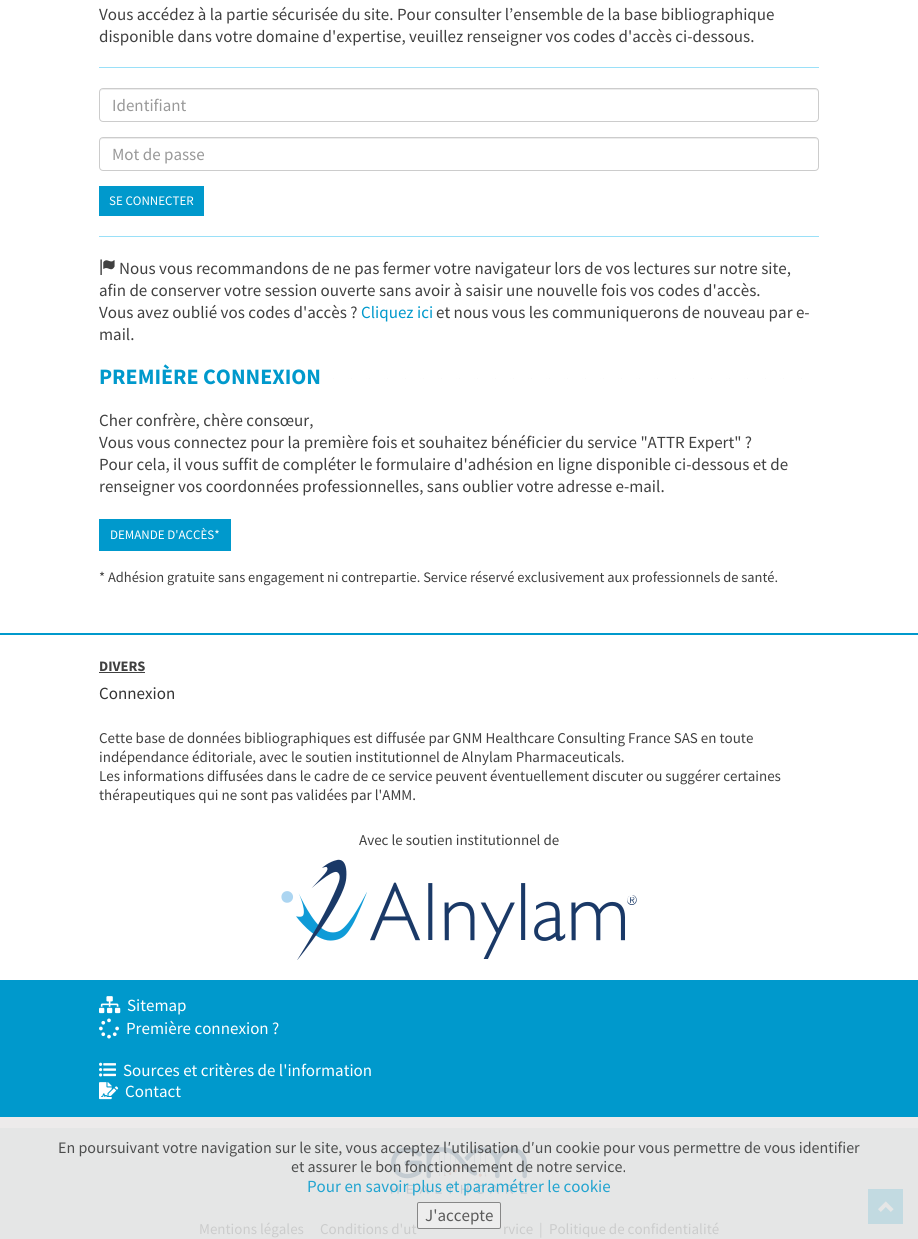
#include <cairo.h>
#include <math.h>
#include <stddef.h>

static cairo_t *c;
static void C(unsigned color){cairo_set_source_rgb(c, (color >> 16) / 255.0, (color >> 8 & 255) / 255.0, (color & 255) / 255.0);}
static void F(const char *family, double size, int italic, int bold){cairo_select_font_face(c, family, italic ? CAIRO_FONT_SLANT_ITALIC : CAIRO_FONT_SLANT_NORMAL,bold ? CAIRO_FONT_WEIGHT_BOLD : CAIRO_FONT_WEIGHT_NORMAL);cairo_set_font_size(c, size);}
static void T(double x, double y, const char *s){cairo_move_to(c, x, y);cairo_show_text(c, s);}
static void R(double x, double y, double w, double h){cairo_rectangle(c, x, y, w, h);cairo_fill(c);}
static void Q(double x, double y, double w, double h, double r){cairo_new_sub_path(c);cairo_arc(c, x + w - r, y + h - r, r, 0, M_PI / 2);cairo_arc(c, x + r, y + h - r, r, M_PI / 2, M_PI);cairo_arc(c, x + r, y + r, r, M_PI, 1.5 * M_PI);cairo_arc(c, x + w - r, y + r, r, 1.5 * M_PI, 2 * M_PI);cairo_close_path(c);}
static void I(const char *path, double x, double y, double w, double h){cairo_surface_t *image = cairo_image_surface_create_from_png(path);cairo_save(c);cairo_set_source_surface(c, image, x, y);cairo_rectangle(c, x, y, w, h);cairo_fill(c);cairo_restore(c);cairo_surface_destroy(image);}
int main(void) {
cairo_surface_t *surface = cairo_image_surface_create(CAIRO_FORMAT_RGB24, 918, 1239);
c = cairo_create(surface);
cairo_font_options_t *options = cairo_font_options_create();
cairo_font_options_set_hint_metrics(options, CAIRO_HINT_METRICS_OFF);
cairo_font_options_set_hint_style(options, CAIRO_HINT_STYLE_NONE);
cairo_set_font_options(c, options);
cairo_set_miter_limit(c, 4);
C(0xffffff);
cairo_paint(c);
F("Source Sans Pro",17,0,0);
C(0x404040);
T(99,20,"Vous accédez à la partie sécurisée du site. Pour consulter l’ensemble de la base bibliographique");
T(99,42,"disponible dans votre domaine d'expertise, veuillez renseigner vos codes d'accès ci-dessous.");
C(0x9ae0f8);
R(99,67,720,1);
C(0xececec);
cairo_new_path(c);
cairo_move_to(c,103,90);
cairo_line_to(c,815,90);
cairo_curve_to(c,817,90,818,91,818,93);
cairo_curve_to(c,818,91,817,89,815,89);
cairo_line_to(c,103,89);
cairo_curve_to(c,101,89,100,91,100,93);
cairo_curve_to(c,100,91,101,90,103,90);
cairo_close_path(c);
cairo_fill(c);
Q(99.5,88.5,719,33,3.5);
C(0xcccccc);
cairo_set_line_width(c,1);
cairo_stroke(c);
C(0x999999);
T(112,111,"Identifiant");
C(0xececec);
cairo_new_path(c);
cairo_move_to(c,103,139);
cairo_line_to(c,815,139);
cairo_curve_to(c,817,139,818,140,818,142);
cairo_curve_to(c,818,140,817,138,815,138);
cairo_line_to(c,103,138);
cairo_curve_to(c,101,138,100,140,100,142);
cairo_curve_to(c,100,140,101,139,103,139);
cairo_close_path(c);
cairo_fill(c);
Q(99.5,137.5,719,33,3.5);
C(0xcccccc);
cairo_stroke(c);
C(0x999999);
T(112,160,"Mot de passe");
C(0x0099cc);
R(99,186,105,30);
F("Source Sans Pro",13,0,0);
C(0xffffff);
T(109,205,"SE CONNECTER");
C(0x9ae0f8);
R(99,236,720,1);
I("1.png",100,259,15,16);
F("Source Sans Pro",17,0,0);
C(0x404040);
T(119,274,"Nous vous recommandons de ne pas fermer votre navigateur lors de vos lectures sur notre site,");
T(99,296,"afin de conserver votre session ouverte sans avoir à saisir une nouvelle fois vos codes d'accès.");
T(99,318,"Vous avez oublié vos codes d'accès ?");
C(0x0099cc);
T(361,318,"Cliquez ici");
C(0x404040);
T(436,318,"et nous vous les communiquerons de nouveau par e-");
T(99,340,"mail.");
I("2.png",333,378,469,1);
F("Source Sans Pro",22,0,1);
C(0x0099cc);
T(99,384,"PREMIÈRE CONNEXION");
F("Source Sans Pro",17,0,0);
C(0x404040);
T(99,426,"Cher confrère, chère consœur,");
T(99,448,"Vous vous connectez pour la première fois et souhaitez bénéficier du service \"ATTR Expert\" ?");
T(99,470,"Pour cela, il vous suffit de compléter le formulaire d'adhésion en ligne disponible ci-dessous et de");
T(99,492,"renseigner vos coordonnées professionnelles, sans oublier votre adresse e-mail.");
C(0x0099cc);
R(99,519,132,32);
F("Source Sans Pro",13,0,0);
C(0xffffff);
T(110,539,"DEMANDE D'ACCÈS*");
F("Source Sans Pro",14.45,0,0);
C(0x404040);
T(99,582,"* Adhésion gratuite sans engagement ni contrepartie. Service réservé exclusivement aux professionnels de santé.");
C(0x0099cc);
R(0,633,918,2);
F("Source Sans Pro",14.45,0,1);
C(0x404040);
T(99,671,"DIVERS");
R(99,672,46,1);
F("Source Sans Pro",17,0,0);
C(0x333333);
T(99,699,"Connexion");
F("Source Sans Pro",15,0,0);
C(0x404040);
T(99,743,"Cette base de données bibliographiques est diffusée par GNM Healthcare Consulting France SAS en toute");
T(99,762,"indépendance éditoriale, avec le soutien institutionnel de Alnylam Pharmaceuticals.");
T(99,781,"Les informations diffusées dans le cadre de ce service peuvent éventuellement discuter ou suggérer certaines");
T(99,800,"thérapeutiques qui ne sont pas validées par l'AMM.");
T(359,845,"Avec le soutien institutionnel de");
I("3.png",281,859,356,101);
C(0x0099cc);
R(0,980,918,137);
I("4.png",99,996,22,18);
F("Source Sans Pro",17,0,0);
C(0xffffff);
T(127,1011,"Sitemap");
I("5.png",99,1018,20,21);
T(126,1034,"Première connexion ?");
I("6.png",99,1062,17,15);
T(123,1076,"Sources et critères de l'information");
I("7.png",99,1082,20,18);
T(125,1097,"Contact");
C(0xe5e6e6);
R(0,1128,918,111);
I("9.png",391,1147,137,47);
F("Source Sans Pro",16,0,0);
C(0x4d4e4e);
T(58,1153,"En poursuivant votre navigation sur le site, vous acceptez lʹutilisation dʹun cookie pour vous permettre de vous identifier");
T(291,1172,"et assurer le bon fonctionnement de notre service.");
F("Source Sans Pro",17,0,0);
C(0x22a4d0);
T(307,1192,"Pour en savoir plus et paramétrer le cookie");
cairo_set_source_rgba(c,0.937,0.937,0.937,0.85);
Q(417,1202,84,27,2);
cairo_fill(c);
Q(417.5,1202.5,83,26,1.5);
cairo_set_source_rgba(c,0.463,0.463,0.463,0.85);
cairo_stroke(c);
C(0x5a5a5a);
T(425,1221,"J'accepte");
C(0xc2dae1);
R(868,1189,35,35);
I("8.png",878,1201,16,11);
C(0xedebeb);
R(0,1117,918,11);
F("Source Sans Pro",15,0,0);
C(0xcbcccc);
T(199,1234,"Mentions légales");
T(320,1234,"Conditions d'ut");
T(503,1234,"rvice");
T(539,1234,"|");
T(549,1234,"Politique de confidentialité");
cairo_surface_write_to_png(surface, "o.png");
cairo_font_options_destroy(options);
cairo_destroy(c);
cairo_surface_destroy(surface);
return 0;
}
